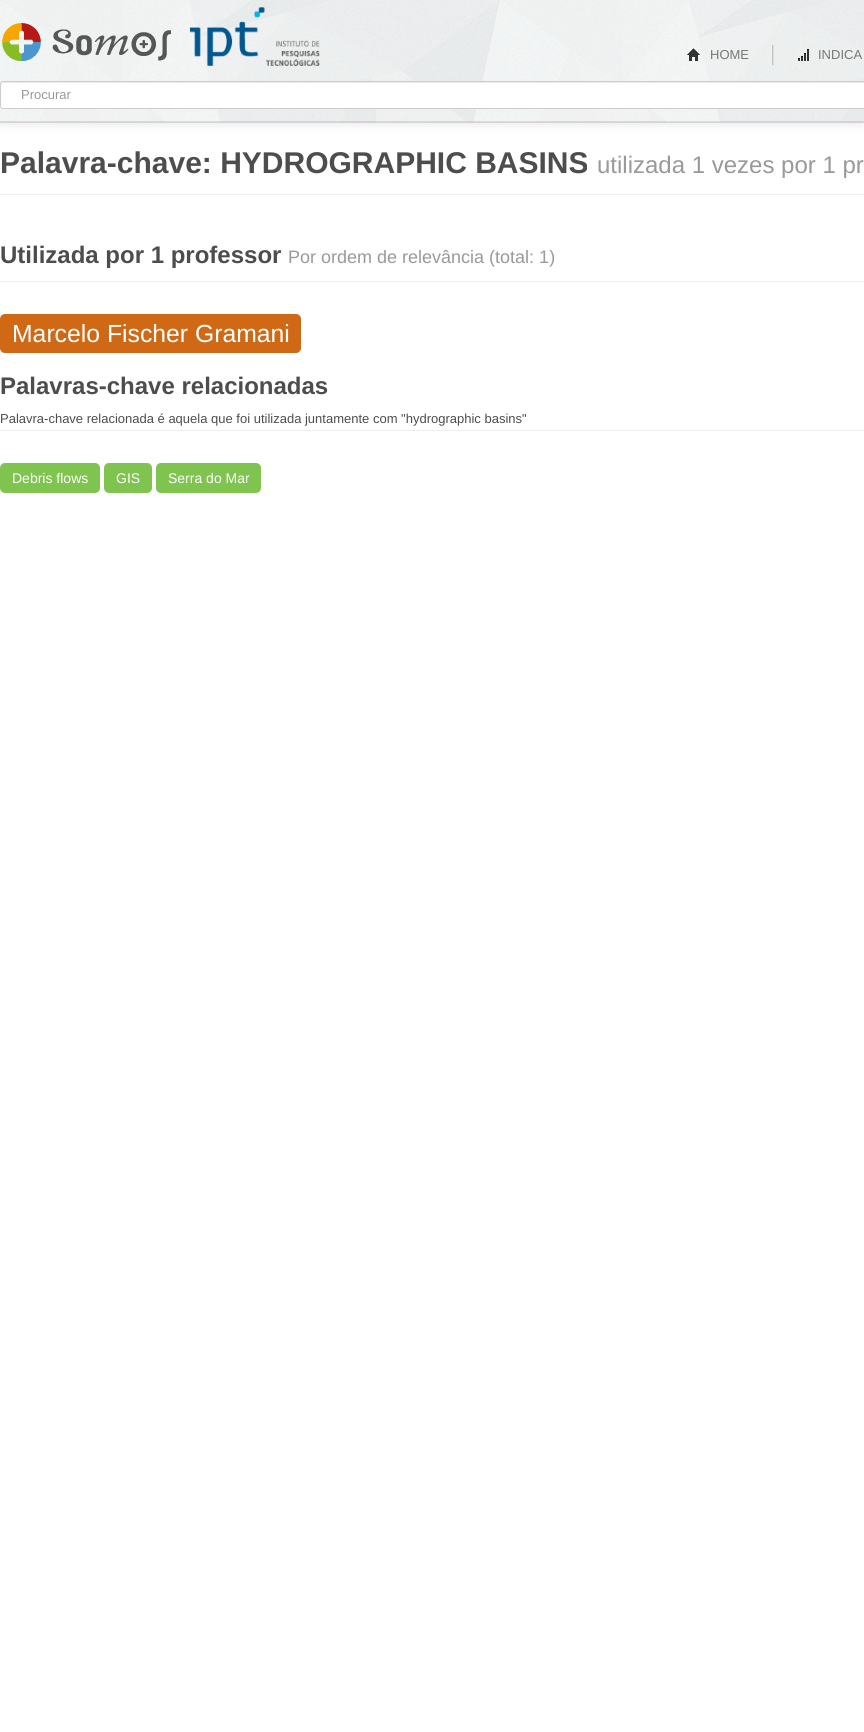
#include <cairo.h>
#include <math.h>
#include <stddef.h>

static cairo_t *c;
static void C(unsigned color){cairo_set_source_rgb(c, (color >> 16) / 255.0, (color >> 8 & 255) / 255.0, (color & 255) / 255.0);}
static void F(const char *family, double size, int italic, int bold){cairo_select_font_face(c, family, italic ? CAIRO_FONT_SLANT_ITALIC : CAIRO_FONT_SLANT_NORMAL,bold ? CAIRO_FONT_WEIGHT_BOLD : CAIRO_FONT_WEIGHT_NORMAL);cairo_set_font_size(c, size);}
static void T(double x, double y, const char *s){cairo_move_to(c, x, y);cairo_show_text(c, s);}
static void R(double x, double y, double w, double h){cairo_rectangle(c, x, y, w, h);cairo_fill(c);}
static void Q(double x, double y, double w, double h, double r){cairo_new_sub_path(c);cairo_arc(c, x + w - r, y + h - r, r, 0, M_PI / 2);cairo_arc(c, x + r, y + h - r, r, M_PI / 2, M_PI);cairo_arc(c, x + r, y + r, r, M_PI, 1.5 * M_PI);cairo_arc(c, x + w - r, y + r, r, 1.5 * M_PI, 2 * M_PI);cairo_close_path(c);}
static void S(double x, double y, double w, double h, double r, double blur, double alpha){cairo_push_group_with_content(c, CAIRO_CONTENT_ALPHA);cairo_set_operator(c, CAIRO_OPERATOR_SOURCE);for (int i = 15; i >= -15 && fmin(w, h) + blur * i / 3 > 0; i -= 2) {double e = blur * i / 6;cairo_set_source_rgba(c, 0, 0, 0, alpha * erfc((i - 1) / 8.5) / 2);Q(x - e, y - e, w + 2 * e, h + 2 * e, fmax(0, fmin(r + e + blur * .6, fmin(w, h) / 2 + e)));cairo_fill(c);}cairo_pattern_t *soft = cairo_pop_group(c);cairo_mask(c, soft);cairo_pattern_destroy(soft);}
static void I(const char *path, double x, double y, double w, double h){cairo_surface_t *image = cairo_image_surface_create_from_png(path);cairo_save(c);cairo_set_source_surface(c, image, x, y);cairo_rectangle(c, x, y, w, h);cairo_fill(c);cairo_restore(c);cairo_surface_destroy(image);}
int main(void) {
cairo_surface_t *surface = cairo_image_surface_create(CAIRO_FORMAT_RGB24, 864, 1732);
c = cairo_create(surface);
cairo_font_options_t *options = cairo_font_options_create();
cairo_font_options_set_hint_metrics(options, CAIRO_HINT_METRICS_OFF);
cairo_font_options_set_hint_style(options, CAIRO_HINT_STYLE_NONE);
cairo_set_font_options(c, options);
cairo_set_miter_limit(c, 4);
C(0xffffff);
cairo_paint(c);
C(0x000000);
S(0,1,864,123,0,5,.1);
I("1.png",0,0,864,122);
cairo_set_source_rgba(c,0,0,0,0.1);
R(0,121,864,1);
C(0xd4d4d4);
R(0,122,864,1);
I("2.png",2,23,169,38);
I("3.png",190,7,130,59);
I("4.png",687,48,13,13);
F("Liberation Sans",13,0,0);
C(0x777777);
T(710,59,"HOME");
C(0xbfbfbf);
R(772,45,1,20);
C(0xdfdfdf);
R(773,45,1,20);
C(0xf2f2f2);
R(771,45,1,20);
I("5.png",798,49,11,13);
C(0x777777);
T(818,59,"INDICA");
C(0xffffff);
Q(0,81,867,28,3);
cairo_fill(c);
C(0xececec);
cairo_new_path(c);
cairo_move_to(c,3,83);
cairo_line_to(c,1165,83);
cairo_curve_to(c,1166,83,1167,84,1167,85);
cairo_line_to(c,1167,83);
cairo_line_to(c,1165,82);
cairo_line_to(c,3,82);
cairo_curve_to(c,2,82,1,83,1,84);
cairo_line_to(c,1,85);
cairo_curve_to(c,1,84,2,83,3,83);
cairo_close_path(c);
cairo_fill(c);
Q(.5,81.5,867,27,2.5);
C(0xcccccc);
cairo_set_line_width(c,1);
cairo_stroke(c);
C(0x999999);
T(21,99,"Procurar");
C(0xeeeeee);
R(0,194,864,1);
F("Liberation Sans",30,0,1);
C(0x4d4d4d);
T(0,173,"Palavra-chave: HYDROGRAPHIC BASINS");
F("Liberation Sans",24,0,0);
C(0x999999);
T(597,173,"utilizada 1 vezes por 1 pr");
C(0xeeeeee);
R(0,281,864,1);
F("Liberation Sans",24,0,1);
C(0x4d4d4d);
T(0,263,"Utilizada por 1 professor");
F("Liberation Sans",18,0,0);
C(0x999999);
T(288,263,"Por ordem de relevância (total: 1)");
C(0xd06916);
Q(0,314,301,39,5);
cairo_fill(c);
F("Liberation Sans",24.75,0,0);
C(0xffffff);
T(12,342,"Marcelo Fischer Gramani");
C(0xeeeeee);
R(0,430,864,1);
F("Liberation Sans",24,0,1);
C(0x4d4d4d);
T(0,394,"Palavras-chave relacionadas");
F("Liberation Sans",13,0,0);
T(0,423,"Palavra-chave relacionada é aquela que foi utilizada juntamente com \"hydrographic basins\"");
C(0x7ec44e);
Q(0,463,100,30,5);
cairo_fill(c);
F("Liberation Sans",14,0,0);
C(0xffffff);
T(12,483,"Debris flows");
C(0x7ec44e);
Q(104,463,48,30,5);
cairo_fill(c);
C(0xffffff);
T(116,483,"GIS");
C(0x7ec44e);
Q(156,463,105,30,5);
cairo_fill(c);
C(0xffffff);
T(168,483,"Serra do Mar");
cairo_surface_write_to_png(surface, "o.png");
cairo_font_options_destroy(options);
cairo_destroy(c);
cairo_surface_destroy(surface);
return 0;
}
